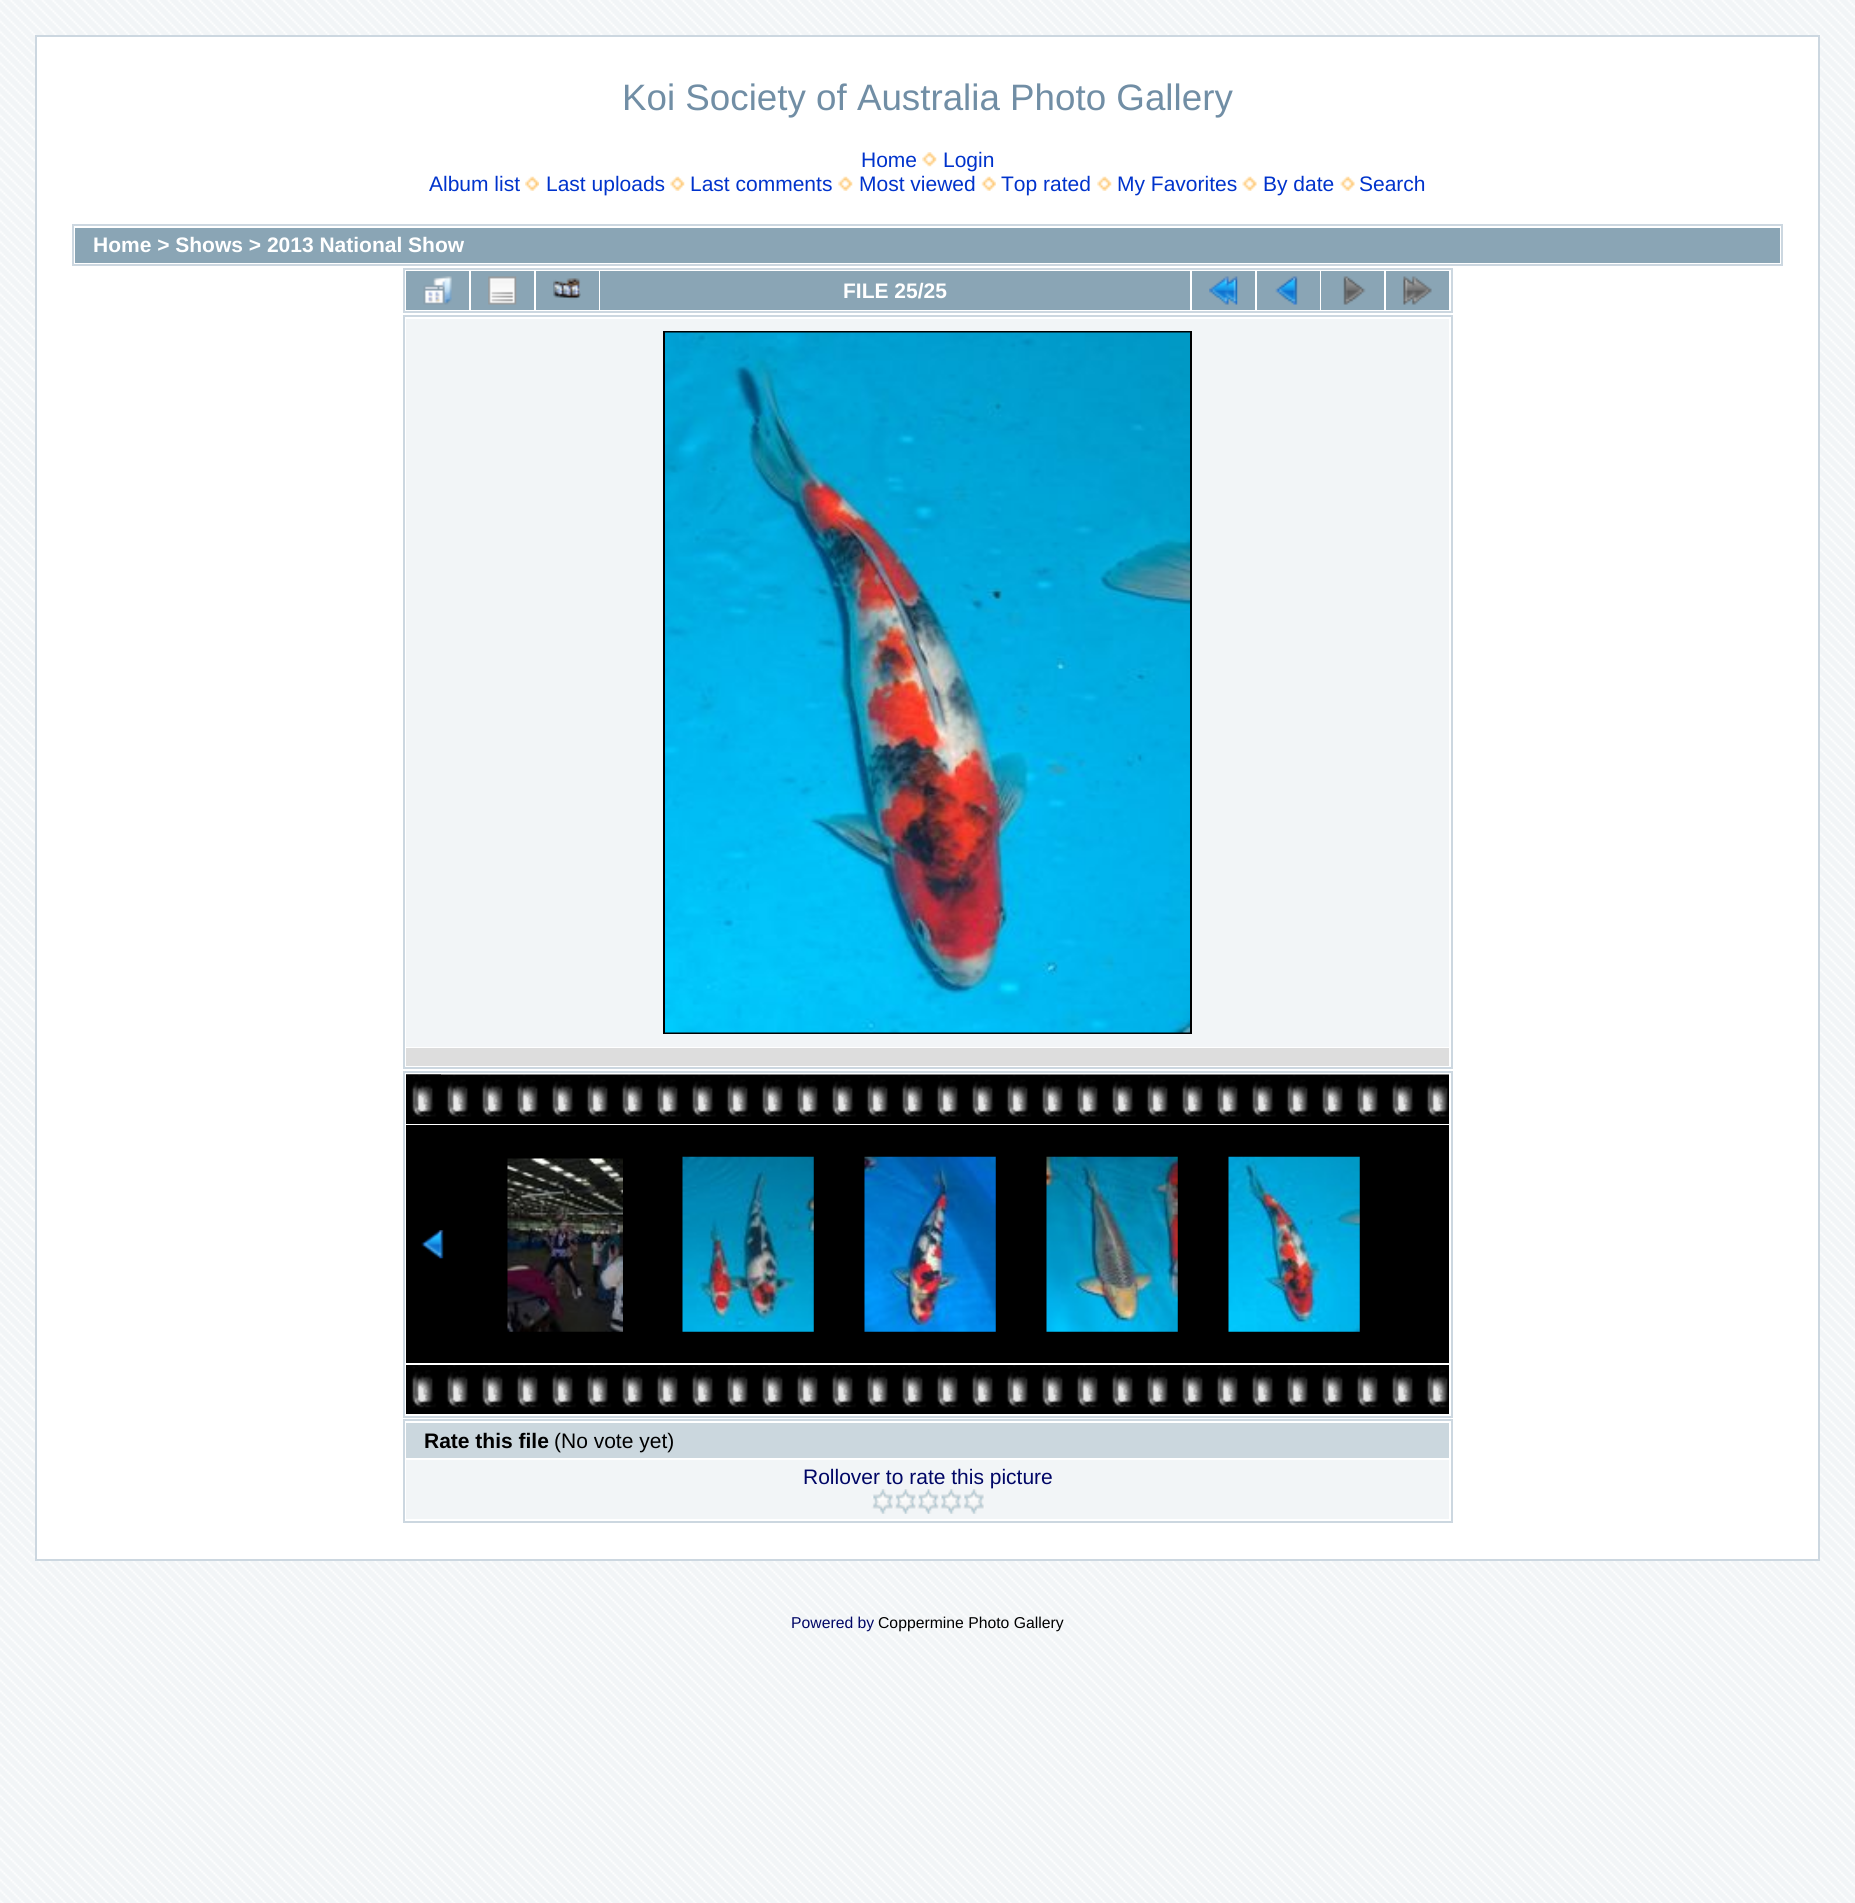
#include <cairo.h>
#include <math.h>
#include <stddef.h>

static cairo_t *c;
static void C(unsigned color){cairo_set_source_rgb(c, (color >> 16) / 255.0, (color >> 8 & 255) / 255.0, (color & 255) / 255.0);}
static void F(const char *family, double size, int italic, int bold){cairo_select_font_face(c, family, italic ? CAIRO_FONT_SLANT_ITALIC : CAIRO_FONT_SLANT_NORMAL,bold ? CAIRO_FONT_WEIGHT_BOLD : CAIRO_FONT_WEIGHT_NORMAL);cairo_set_font_size(c, size);}
static void T(double x, double y, const char *s){cairo_move_to(c, x, y);cairo_show_text(c, s);}
static void R(double x, double y, double w, double h){cairo_rectangle(c, x, y, w, h);cairo_fill(c);}
static void I(const char *path, double x, double y, double w, double h){cairo_surface_t *image = cairo_image_surface_create_from_png(path);cairo_save(c);cairo_set_source_surface(c, image, x, y);cairo_rectangle(c, x, y, w, h);cairo_fill(c);cairo_restore(c);cairo_surface_destroy(image);}
int main(void) {
cairo_surface_t *surface = cairo_image_surface_create(CAIRO_FORMAT_RGB24, 1855, 1903);
c = cairo_create(surface);
cairo_font_options_t *options = cairo_font_options_create();
cairo_font_options_set_hint_metrics(options, CAIRO_HINT_METRICS_OFF);
cairo_font_options_set_hint_style(options, CAIRO_HINT_STYLE_NONE);
cairo_set_font_options(c, options);
cairo_set_miter_limit(c, 4);
C(0xf2f5f7);
cairo_paint(c);
I("1.png",0,0,1855,1903);
C(0xffffff);
cairo_rectangle(c,36,36,1783,1524);
cairo_fill_preserve(c);
C(0xccd7e0);
cairo_stroke(c);
F("Liberation Sans",36.75,0,0);
C(0x718ea5);
T(622,110,"Koi Society of Australia Photo Gallery");
F("Liberation Sans",21,0,0);
C(0x0033cc);
T(861,167,"Home");
I("2.png",922,152,15,15);
T(943,167,"Login");
T(429,191,"Album list");
I("3.png",525,176,14,15);
T(546,191,"Last uploads");
I("4.png",670,176,15,15);
T(690,191,"Last comments");
I("4.png",838,176,15,15);
T(859,191,"Most viewed");
I("5.png",981,176,15,15);
T(1001,191,"Top rated");
I("4.png",1097,176,15,15);
T(1117,191,"My Favorites");
I("6.png",1242,176,15,15);
T(1263,191,"By date");
I("6.png",1340,176,15,15);
T(1359,191,"Search");
cairo_rectangle(c,73,225,1709,40);
C(0xccd7e0);
cairo_stroke(c);
C(0x8aa5b5);
R(75,228,1705,35);
F("Liberation Sans",21,0,1);
C(0xffffff);
T(93,252,"Home > Shows > 2013 National Show");
cairo_rectangle(c,404,269,1048,43);
C(0xccd7e0);
cairo_stroke(c);
C(0x8aa5b5);
R(406,271,63,39);
I("7.png",423,276,29,29);
R(471,271,63,39);
I("8.png",488,276,29,29);
R(536,271,63,39);
I("9.png",553,278,28,22);
R(600,271,590,39);
C(0xffffff);
T(843,298,"FILE 25/25");
C(0x8aa5b5);
R(1192,271,63,39);
I("10.png",1209,276,29,29);
R(1257,271,63,39);
I("11.png",1275,276,23,29);
R(1321,271,63,39);
I("12.png",1343,276,23,29);
R(1386,271,63,39);
I("13.png",1403,276,29,29);
cairo_rectangle(c,404,316,1048,752);
C(0xccd7e0);
cairo_stroke(c);
C(0xf2f5f7);
R(406,319,1043,728);
cairo_rectangle(c,664,332,527,701);
C(0x000000);
cairo_stroke(c);
I("14.png",665,332,525,701);
C(0xdddddd);
R(406,1048,1043,18);
cairo_rectangle(c,404,1072,1048,345);
C(0xccd7e0);
cairo_stroke(c);
C(0x000000);
R(406,1117,1043,7);
I("15.png",406,1074,1043,43);
I("16.png",406,1074,35,38);
R(406,1125,1043,238);
I("17.png",421,1230,23,29);
I("18.png",507,1158,116,174);
I("19.png",682,1156,132,176);
I("20.png",864,1156,132,176);
I("21.png",1046,1156,132,176);
I("22.png",1228,1156,132,176);
R(406,1365,1043,49);
I("23.png",411,1365,1038,43);
I("24.png",414,1399,13,4);
cairo_rectangle(c,404,1420,1048,102);
C(0xccd7e0);
cairo_stroke(c);
C(0xcbd7de);
R(406,1423,1043,35);
C(0x000000);
T(424,1448,"Rate this file");
F("Liberation Sans",21,0,0);
T(554,1448,"(No vote yet)");
C(0xf2f5f7);
R(406,1460,1043,59);
C(0x000666);
T(803,1484,"Rollover to rate this picture");
I("25.png",871,1489,23,25);
I("26.png",894,1489,23,25);
I("27.png",917,1489,22,25);
I("28.png",940,1489,22,25);
I("29.png",962,1489,23,25);
F("Liberation Sans",15.75,0,0);
T(791,1628,"Powered by");
C(0x000000);
T(878,1628,"Coppermine Photo Gallery");
cairo_surface_write_to_png(surface, "o.png");
cairo_font_options_destroy(options);
cairo_destroy(c);
cairo_surface_destroy(surface);
return 0;
}
